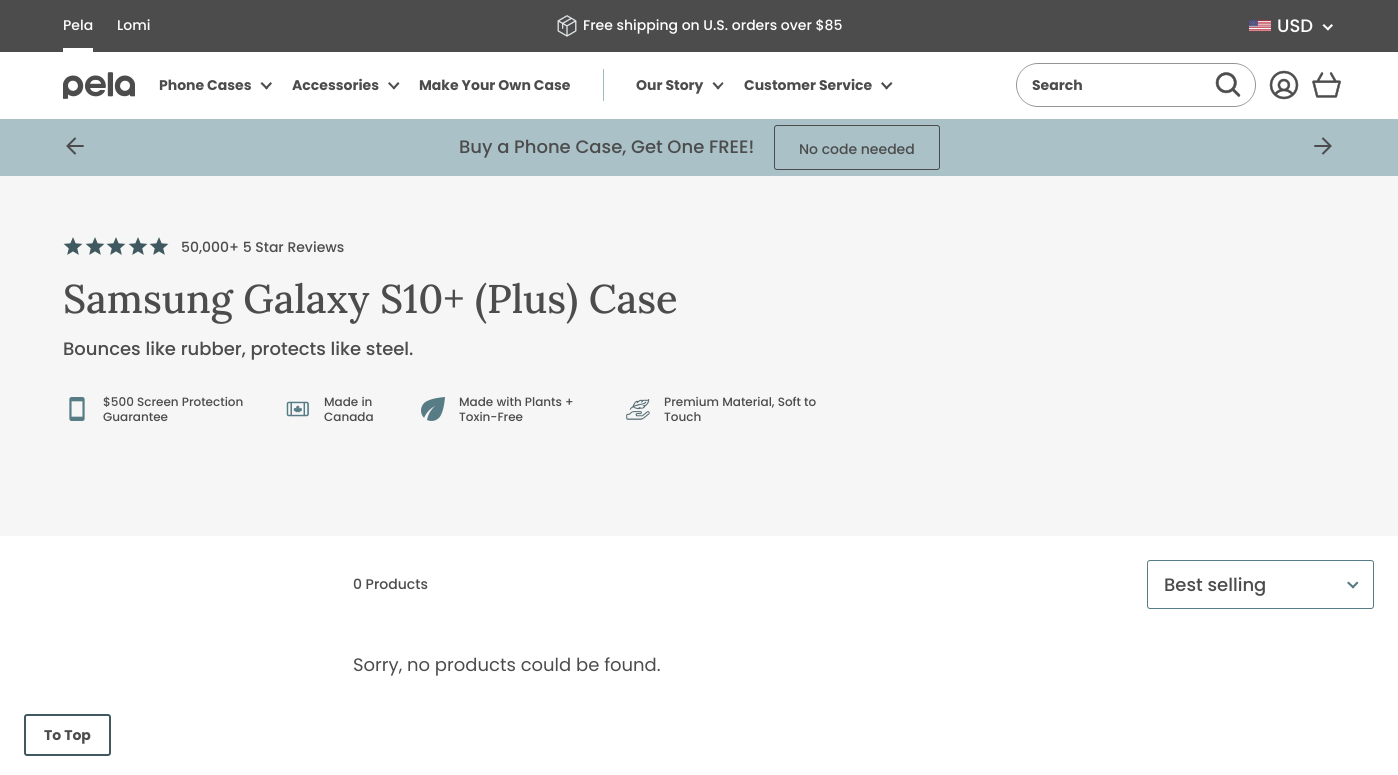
#include <cairo.h>
#include <math.h>
#include <stddef.h>

static cairo_t *c;
static void C(unsigned color){cairo_set_source_rgb(c, (color >> 16) / 255.0, (color >> 8 & 255) / 255.0, (color & 255) / 255.0);}
static void F(const char *family, double size, int italic, int bold){cairo_select_font_face(c, family, italic ? CAIRO_FONT_SLANT_ITALIC : CAIRO_FONT_SLANT_NORMAL,bold ? CAIRO_FONT_WEIGHT_BOLD : CAIRO_FONT_WEIGHT_NORMAL);cairo_set_font_size(c, size);}
static void T(double x, double y, const char *s){cairo_move_to(c, x, y);cairo_show_text(c, s);}
static void R(double x, double y, double w, double h){cairo_rectangle(c, x, y, w, h);cairo_fill(c);}
static void Q(double x, double y, double w, double h, double r){cairo_new_sub_path(c);cairo_arc(c, x + w - r, y + h - r, r, 0, M_PI / 2);cairo_arc(c, x + r, y + h - r, r, M_PI / 2, M_PI);cairo_arc(c, x + r, y + r, r, M_PI, 1.5 * M_PI);cairo_arc(c, x + w - r, y + r, r, 1.5 * M_PI, 2 * M_PI);cairo_close_path(c);}
static void I(const char *path, double x, double y, double w, double h){cairo_surface_t *image = cairo_image_surface_create_from_png(path);cairo_save(c);cairo_set_source_surface(c, image, x, y);cairo_rectangle(c, x, y, w, h);cairo_fill(c);cairo_restore(c);cairo_surface_destroy(image);}
int main(void) {
cairo_surface_t *surface = cairo_image_surface_create(CAIRO_FORMAT_RGB24, 1398, 775);
c = cairo_create(surface);
cairo_font_options_t *options = cairo_font_options_create();
cairo_font_options_set_hint_metrics(options, CAIRO_HINT_METRICS_OFF);
cairo_font_options_set_hint_style(options, CAIRO_HINT_STYLE_NONE);
cairo_set_font_options(c, options);
cairo_set_miter_limit(c, 4);
C(0xffffff);
cairo_paint(c);
C(0x4c4c4c);
R(0,0,1398,52);
F("Poppins Medium",14,0,0);
C(0xffffff);
T(63,30,"Pela");
R(63,48,30,4);
T(117,30,"Lomi");
I("1.png",557,15,20,22);
T(583,30,"Free shipping on U.S. orders over $85");
I("2.png",1249,20,22,12);
F("Poppins Medium",18,0,0);
T(1277,32,"USD");
cairo_new_path(c);
cairo_move_to(c,1331.5,24);
cairo_line_to(c,1333,25.5);
cairo_line_to(c,1328,30.5);
cairo_line_to(c,1326.5,29);
cairo_close_path(c);
cairo_fill(c);
cairo_new_path(c);
cairo_move_to(c,1324,24);
cairo_line_to(c,1329,29);
cairo_line_to(c,1328,30.5);
cairo_line_to(c,1322.5,25.5);
cairo_close_path(c);
cairo_fill(c);
I("3.png",63,72,72,27);
F("Poppins",14,0,1);
C(0x4c4c4c);
T(159,90,"Phone Cases");
cairo_new_path(c);
cairo_move_to(c,270.5,82);
cairo_line_to(c,272,83.5);
cairo_line_to(c,266.5,89.5);
cairo_line_to(c,265,88);
cairo_close_path(c);
cairo_fill(c);
cairo_new_path(c);
cairo_move_to(c,262,82);
cairo_line_to(c,268,88);
cairo_line_to(c,266.5,89.5);
cairo_line_to(c,260.5,83.5);
cairo_close_path(c);
cairo_fill(c);
T(292,90,"Accessories");
cairo_new_path(c);
cairo_move_to(c,398,82);
cairo_line_to(c,399.5,83.5);
cairo_line_to(c,394,89.5);
cairo_line_to(c,392.5,88);
cairo_close_path(c);
cairo_fill(c);
cairo_new_path(c);
cairo_move_to(c,389.5,82);
cairo_line_to(c,395,88);
cairo_line_to(c,394,89.5);
cairo_line_to(c,388,83.5);
cairo_close_path(c);
cairo_fill(c);
T(419,90,"Make Your Own Case");
C(0xa0bbc1);
R(603,69,1,32);
C(0x4c4c4c);
T(636,90,"Our Story");
cairo_new_path(c);
cairo_move_to(c,722.5,82);
cairo_line_to(c,723.5,83.5);
cairo_line_to(c,718,89.5);
cairo_line_to(c,716.5,88);
cairo_close_path(c);
cairo_fill(c);
cairo_new_path(c);
cairo_move_to(c,714,82);
cairo_line_to(c,719.5,88);
cairo_line_to(c,718,89.5);
cairo_line_to(c,712.5,83.5);
cairo_close_path(c);
cairo_fill(c);
T(744,90,"Customer Service");
cairo_new_path(c);
cairo_move_to(c,891,82);
cairo_line_to(c,892.5,83.5);
cairo_line_to(c,886.5,89.5);
cairo_line_to(c,885,88);
cairo_close_path(c);
cairo_fill(c);
cairo_new_path(c);
cairo_move_to(c,882.5,82);
cairo_line_to(c,888,88);
cairo_line_to(c,886.5,89.5);
cairo_line_to(c,881,83.5);
cairo_close_path(c);
cairo_fill(c);
C(0x929692);
cairo_set_fill_rule(c,CAIRO_FILL_RULE_EVEN_ODD);
cairo_new_path(c);
cairo_move_to(c,1038,63);
cairo_line_to(c,1212,63);
cairo_line_to(c,1212,107);
cairo_line_to(c,1038,107);
cairo_curve_to(c,1026,107,1016,97,1016,85);
cairo_curve_to(c,1016,73,1026,63,1038,63);
cairo_close_path(c);
cairo_move_to(c,1038,64);
cairo_line_to(c,1212,64);
cairo_line_to(c,1212,106);
cairo_line_to(c,1038,106);
cairo_curve_to(c,1026,106,1017,97,1017,85);
cairo_curve_to(c,1017,73,1026,64,1038,64);
cairo_close_path(c);
cairo_fill(c);
cairo_new_path(c);
cairo_move_to(c,1212,63);
cairo_line_to(c,1234,63);
cairo_curve_to(c,1246,63,1256,73,1256,85);
cairo_curve_to(c,1256,97,1246,107,1234,107);
cairo_line_to(c,1212,107);
cairo_close_path(c);
cairo_move_to(c,1212,64);
cairo_line_to(c,1234,64);
cairo_curve_to(c,1246,64,1255,73,1255,85);
cairo_curve_to(c,1255,97,1246,106,1234,106);
cairo_line_to(c,1212,106);
cairo_close_path(c);
cairo_fill(c);
I("4.png",1215,72,26,25);
C(0x4c4c4c);
T(1032,90,"Search");
I("5.png",1269,70,30,30);
I("6.png",1312,72,29,26);
C(0xa9c1c7);
R(0,119,1398,57);
I("7.png",66,137,18,18);
I("8.png",1314,137,18,18);
F("Poppins Medium",18,0,0);
C(0x4c4c4c);
T(459,153,"Buy a Phone Case, Get One FREE!");
Q(774.5,125.5,165,44,2.5);
cairo_set_line_width(c,1);
cairo_stroke(c);
F("Poppins Medium",14,0,0);
T(799,154,"No code needed");
C(0xf6f6f6);
R(0,176,1398,360);
I("9.png",63,237,20,18);
I("9.png",85,237,20,18);
I("9.png",106,237,20,18);
I("9.png",128,237,20,18);
I("9.png",149,237,20,18);
C(0x4c4c4c);
T(181,252,"50,000+ 5 Star Reviews");
F("Lora Medium",40,0,0);
T(63,313,"Samsung Galaxy S10+ (Plus) Case");
F("Poppins Medium",18,0,0);
T(63,355,"Bounces like rubber, protects like steel.");
I("10.png",69,397,16,24);
F("Poppins Medium",12,0,0);
T(103,406,"$500 Screen Protection");
T(103,421,"Guarantee");
I("11.png",286,401,23,16);
T(324,406,"Made in");
T(324,421,"Canada");
I("12.png",421,397,24,24);
T(459,406,"Made with Plants +");
T(459,421,"Toxin-Free");
I("13.png",626,399,24,21);
T(664,406,"Premium Material, Soft to");
T(664,421,"Touch");
F("Poppins Medium",14,0,0);
T(353,589,"0 Products");
Q(1147.5,560.5,226,48,2.5);
C(0x577c85);
cairo_stroke(c);
F("Poppins Medium",18,0,0);
C(0x4c4c4c);
T(1164,591,"Best selling");
C(0x577c85);
cairo_set_fill_rule(c,CAIRO_FILL_RULE_WINDING);
cairo_new_path(c);
cairo_move_to(c,1357,581.5);
cairo_line_to(c,1358.5,583);
cairo_line_to(c,1353,588.5);
cairo_line_to(c,1351.5,587);
cairo_close_path(c);
cairo_fill(c);
cairo_new_path(c);
cairo_move_to(c,1348.5,581.5);
cairo_line_to(c,1354.5,587);
cairo_line_to(c,1353,588.5);
cairo_line_to(c,1347,583);
cairo_close_path(c);
cairo_fill(c);
F("Poppins",18,0,0);
C(0x4c4c4c);
T(353,671,"Sorry, no products could be found.");
Q(25,715,85,40,2);
C(0x405960);
cairo_set_line_width(c,2);
cairo_stroke(c);
F("Poppins",14,0,1);
C(0x4c4c4c);
T(44,740,"To Top");
cairo_surface_write_to_png(surface, "o.png");
cairo_font_options_destroy(options);
cairo_destroy(c);
cairo_surface_destroy(surface);
return 0;
}
